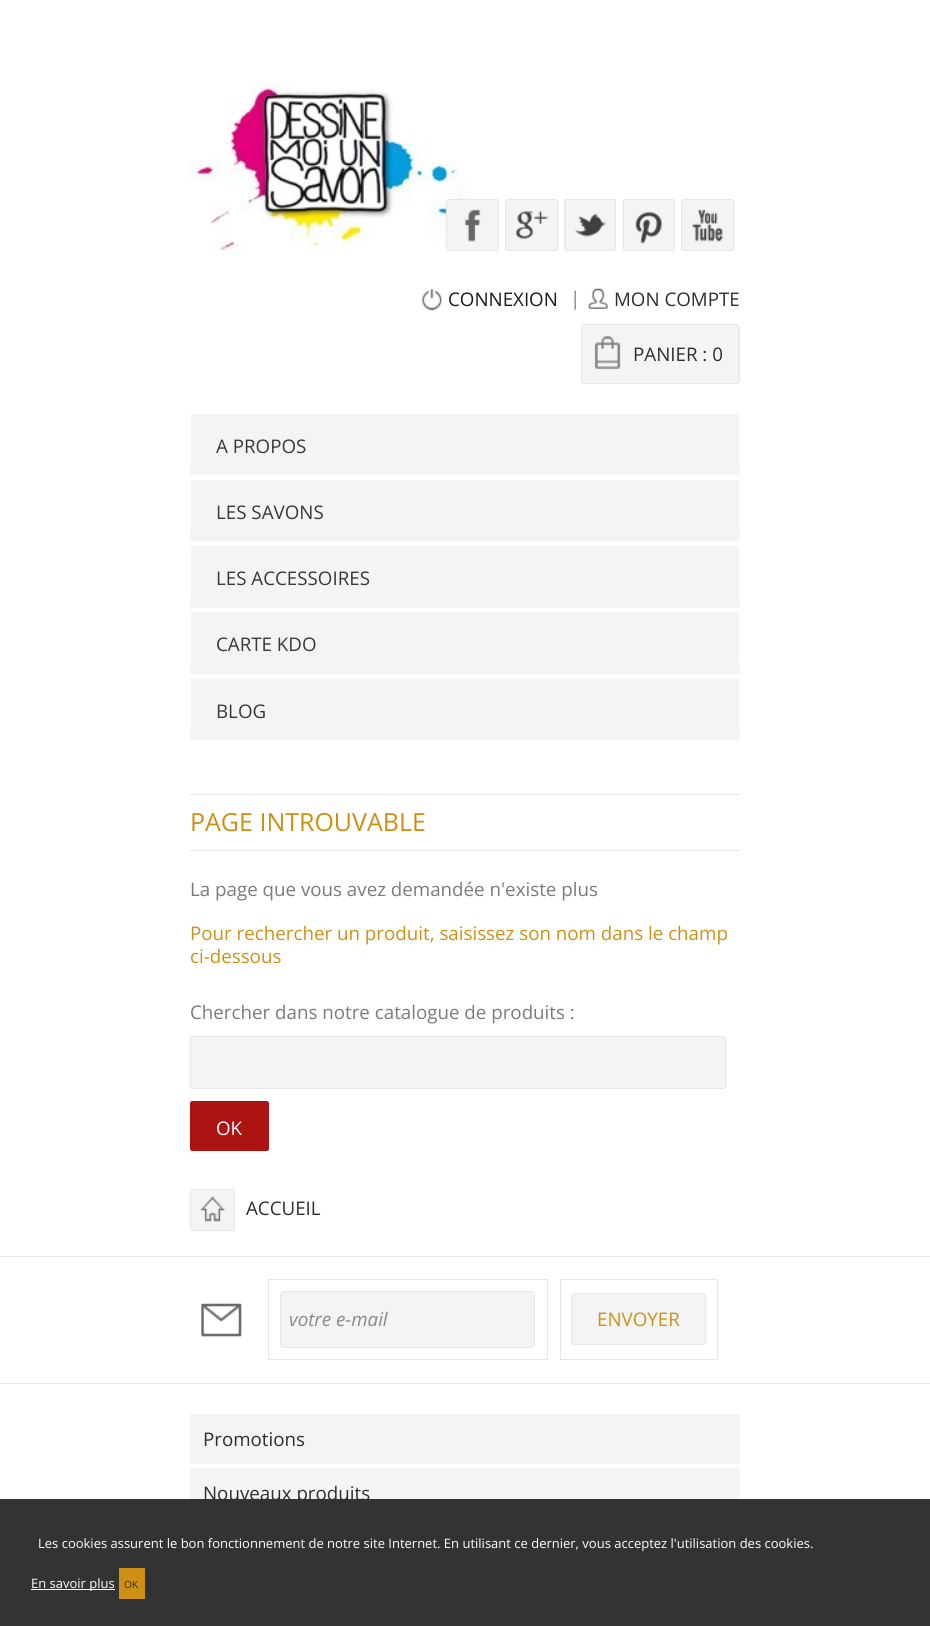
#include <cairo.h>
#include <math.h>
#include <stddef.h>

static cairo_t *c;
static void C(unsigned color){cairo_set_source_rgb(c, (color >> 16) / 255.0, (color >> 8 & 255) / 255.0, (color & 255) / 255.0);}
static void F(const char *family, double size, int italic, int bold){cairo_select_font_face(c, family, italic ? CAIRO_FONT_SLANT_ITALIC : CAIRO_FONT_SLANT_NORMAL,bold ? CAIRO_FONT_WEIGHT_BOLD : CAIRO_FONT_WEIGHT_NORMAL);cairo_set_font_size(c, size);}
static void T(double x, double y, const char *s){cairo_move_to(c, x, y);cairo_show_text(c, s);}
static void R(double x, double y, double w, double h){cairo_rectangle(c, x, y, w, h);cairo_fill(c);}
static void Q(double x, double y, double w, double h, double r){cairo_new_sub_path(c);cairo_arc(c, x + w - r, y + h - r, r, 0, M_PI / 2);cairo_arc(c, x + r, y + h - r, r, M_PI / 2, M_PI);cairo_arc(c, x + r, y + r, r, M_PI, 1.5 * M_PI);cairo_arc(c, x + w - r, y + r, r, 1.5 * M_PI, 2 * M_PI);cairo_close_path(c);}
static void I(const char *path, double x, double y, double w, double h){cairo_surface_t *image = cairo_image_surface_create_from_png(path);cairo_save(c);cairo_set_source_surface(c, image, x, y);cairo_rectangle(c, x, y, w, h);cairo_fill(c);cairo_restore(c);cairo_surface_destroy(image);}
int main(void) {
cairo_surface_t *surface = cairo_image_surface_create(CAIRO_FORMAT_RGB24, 930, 1626);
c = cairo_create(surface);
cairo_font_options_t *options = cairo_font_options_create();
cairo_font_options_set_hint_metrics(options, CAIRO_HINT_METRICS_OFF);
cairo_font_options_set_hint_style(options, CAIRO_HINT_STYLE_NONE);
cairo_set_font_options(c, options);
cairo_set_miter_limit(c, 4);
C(0xffffff);
cairo_paint(c);
I("1.png",190,81,280,175);
C(0xf4f4f4);
Q(446,199,53,52,2.5);
cairo_fill(c);
I("2.png",464,209,17,33);
Q(446.5,199.5,52,51,2);
C(0xe5e6e7);
cairo_set_line_width(c,1);
cairo_stroke(c);
C(0xf4f4f4);
Q(505,199,53,52,2.5);
cairo_fill(c);
I("3.png",516,211,32,28);
Q(505.5,199.5,52,51,2);
C(0xe5e6e7);
cairo_stroke(c);
C(0xf4f4f4);
Q(564,199,52,52,2.5);
cairo_fill(c);
I("4.png",575,213,32,24);
Q(564.5,199.5,51,51,2);
C(0xe5e6e7);
cairo_stroke(c);
C(0xf4f4f4);
Q(623,199,52,52,2.5);
cairo_fill(c);
I("5.png",635,211,28,33);
Q(623.5,199.5,51,51,2);
C(0xe5e6e7);
cairo_stroke(c);
C(0xf4f4f4);
Q(681,199,53,52,2.5);
cairo_fill(c);
I("6.png",692,209,31,33);
Q(681.5,199.5,52,51,2);
C(0xe5e6e7);
cairo_stroke(c);
I("7.png",422,288,20,23);
F("Open Sans",18.75,0,0);
C(0x1b1a19);
T(448,306,"CONNEXION");
C(0x7b7b7b);
T(570,305,"|");
I("8.png",588,288,20,21);
C(0x2e2e2e);
T(614,306,"MON COMPTE");
C(0xf4f4f4);
Q(581,324,159,60,4);
cairo_fill(c);
I("9.png",594,336,27,33);
Q(581.5,324.5,158,59,3.5);
C(0xe5e6e7);
cairo_stroke(c);
C(0x2e2e2e);
T(633,361,"PANIER : 0");
C(0xf4f4f4);
R(190,414,550,61);
C(0xffffff);
R(739,413,1,51);
R(190,413,1,51);
C(0x363839);
T(216,453,"A PROPOS");
C(0xf4f4f4);
R(190,480,550,61);
C(0xffffff);
R(739,479,1,51);
R(190,479,1,51);
C(0x363839);
T(216,519,"LES SAVONS");
C(0xf4f4f4);
R(190,546,550,62);
C(0xffffff);
R(739,545,1,51);
R(190,545,1,51);
C(0x363839);
T(216,585,"LES ACCESSOIRES");
C(0xf4f4f4);
R(190,612,550,62);
C(0xffffff);
R(739,611,1,52);
R(190,611,1,52);
C(0x363839);
T(216,651,"CARTE KDO");
C(0xf4f4f4);
R(190,679,550,61);
C(0xffffff);
R(739,678,1,51);
R(190,678,1,51);
C(0x363839);
T(216,718,"BLOG");
C(0xf4f4f4);
R(190,1468,550,31);
C(0x2e2e2e);
T(203,1500,"Nouveaux produits");
C(0x333333);
R(0,1499,930,127);
F("Open Sans",13,0,0);
C(0xffffff);
T(38,1548,"Les cookies assurent le bon fonctionnement de notre site Internet. En utilisant ce dernier, vous acceptez l'utilisation des cookies.");
R(31,1589,84,1);
T(31,1588,"En savoir plus");
C(0xce9014);
R(119,1568,26,31);
F("Open Sans",10,0,0);
C(0x2e2e2e);
T(124,1588,"OK");
C(0xe5e6e7);
R(190,794,550,1);
R(190,850,550,1);
F("Open Sans",25,0,0);
C(0xce9014);
T(190,831,"PAGE INTROUVABLE");
F("Open Sans",18.75,0,0);
C(0x7b7b7b);
T(190,896,"La page que vous avez demandée n'existe plus");
C(0xce9014);
T(190,940,"Pour rechercher un produit, saisissez son nom dans le champ");
T(190,963,"ci-dessous");
C(0x7b7b7b);
T(190,1019,"Chercher dans notre catalogue de produits :");
C(0xf4f4f4);
Q(190.5,1036.5,535,52,2);
cairo_fill_preserve(c);
C(0xe5e6e7);
cairo_stroke(c);
C(0xad1313);
Q(190.5,1101.5,78,49,2);
cairo_fill_preserve(c);
cairo_stroke(c);
C(0xffffff);
T(216,1135,"OK");
C(0xf4f4f4);
Q(190,1189,45,42,2.5);
cairo_fill(c);
I("10.png",200,1196,26,26);
Q(190.5,1189.5,44,41,2);
C(0xe5e6e7);
cairo_stroke(c);
C(0x2e2e2e);
T(246,1215,"ACCUEIL");
C(0xe5e6e7);
R(0,1256,930,1);
R(0,1383,930,1);
I("11.png",201,1303,41,34);
cairo_rectangle(c,268.5,1279.5,279,80);
cairo_stroke(c);
C(0xf4f4f4);
Q(280.5,1291.5,254,56,3.5);
cairo_fill_preserve(c);
C(0xe5e6e7);
cairo_stroke(c);
F("Open Sans",18.75,1,0);
C(0x888888);
T(289,1326,"votre e-mail");
cairo_rectangle(c,560.5,1279.5,157,80);
C(0xe5e6e7);
cairo_stroke(c);
C(0xf4f4f4);
Q(571.5,1293.5,134,51,3.5);
cairo_fill_preserve(c);
C(0xe5e6e7);
cairo_stroke(c);
F("Open Sans",18.75,0,0);
C(0xce9014);
T(597,1326,"ENVOYER");
C(0xf4f4f4);
R(190,1414,550,50);
C(0x2e2e2e);
T(203,1446,"Promotions");
cairo_surface_write_to_png(surface, "o.png");
cairo_font_options_destroy(options);
cairo_destroy(c);
cairo_surface_destroy(surface);
return 0;
}
